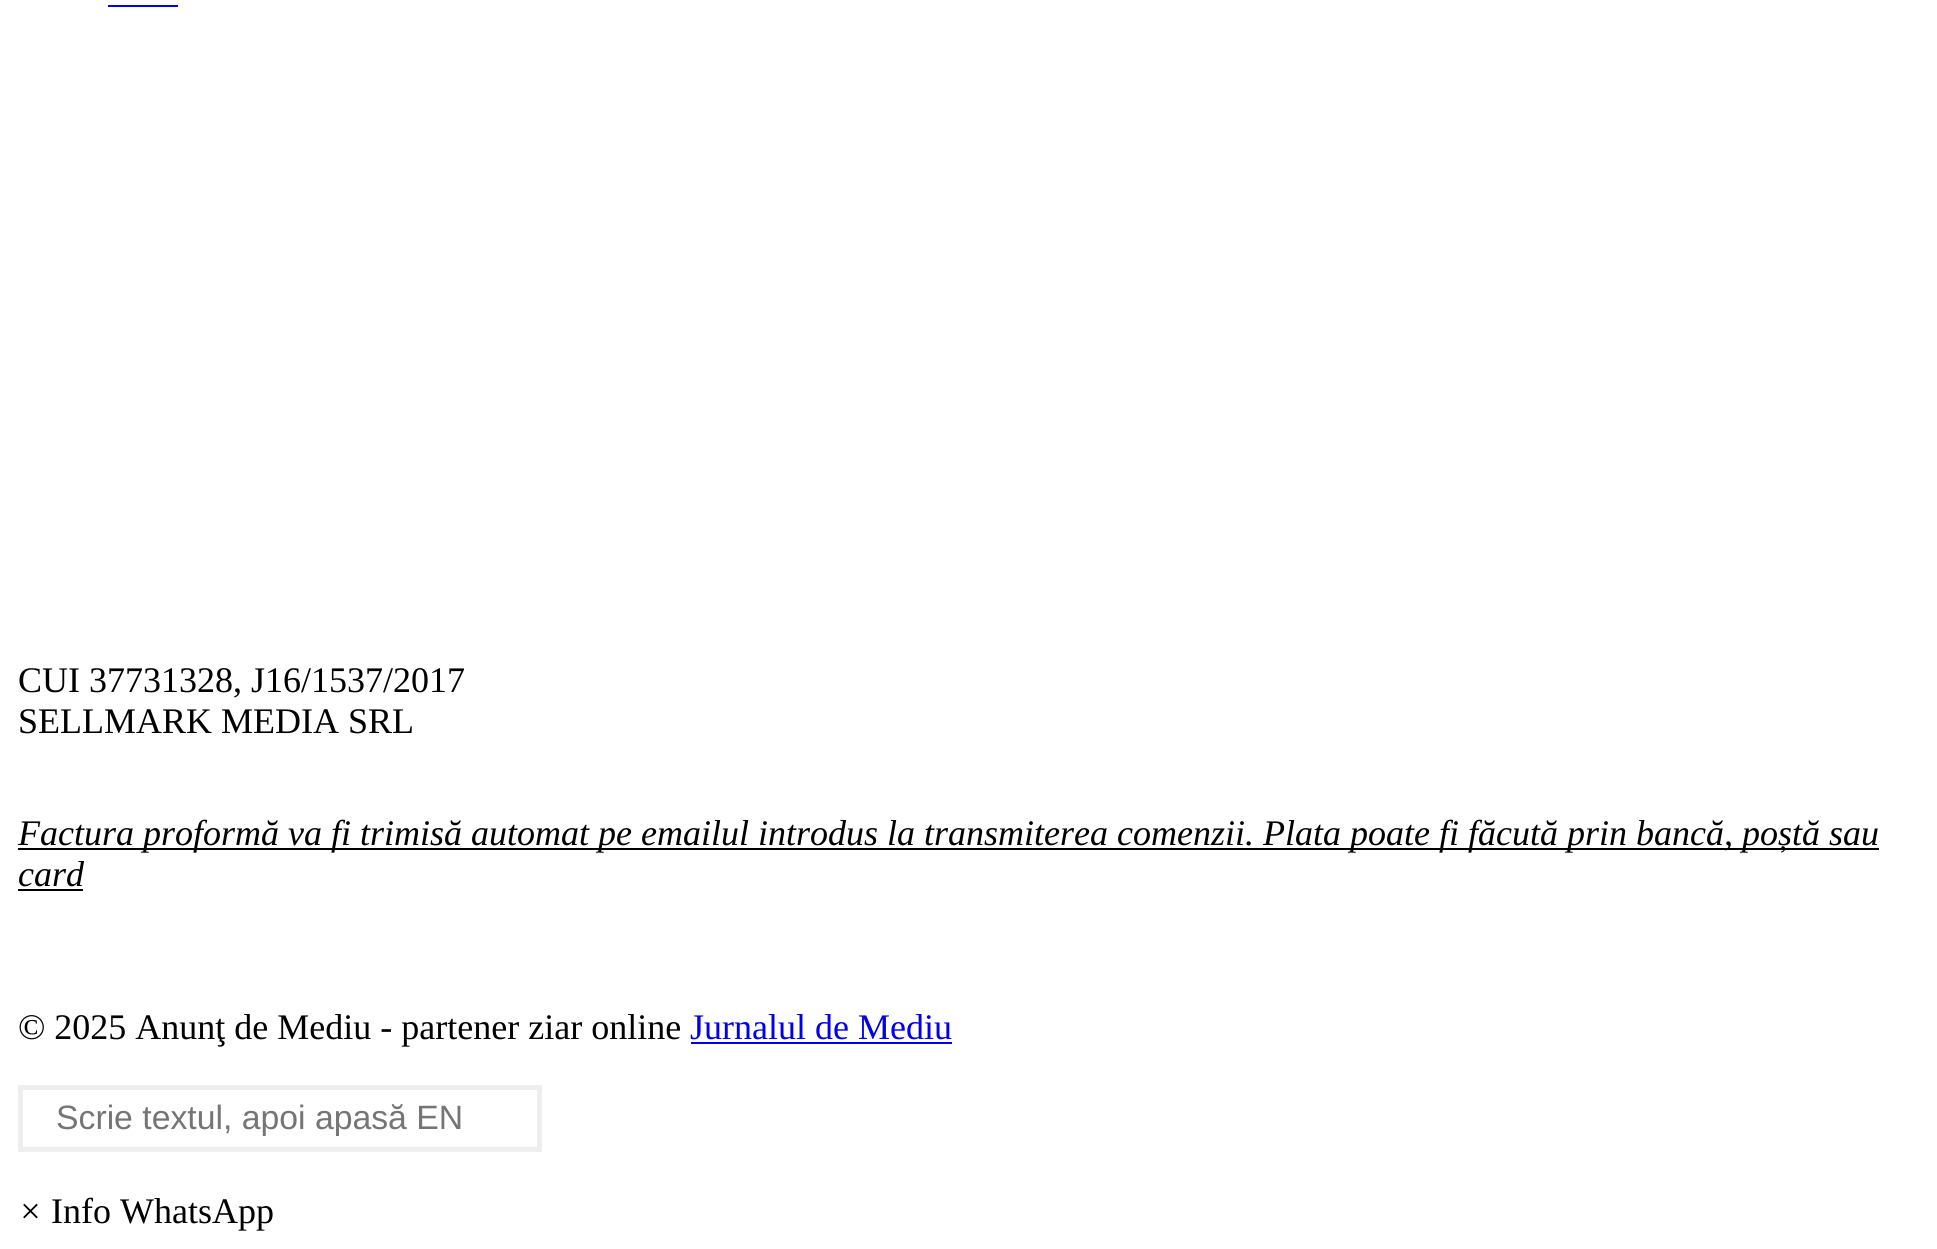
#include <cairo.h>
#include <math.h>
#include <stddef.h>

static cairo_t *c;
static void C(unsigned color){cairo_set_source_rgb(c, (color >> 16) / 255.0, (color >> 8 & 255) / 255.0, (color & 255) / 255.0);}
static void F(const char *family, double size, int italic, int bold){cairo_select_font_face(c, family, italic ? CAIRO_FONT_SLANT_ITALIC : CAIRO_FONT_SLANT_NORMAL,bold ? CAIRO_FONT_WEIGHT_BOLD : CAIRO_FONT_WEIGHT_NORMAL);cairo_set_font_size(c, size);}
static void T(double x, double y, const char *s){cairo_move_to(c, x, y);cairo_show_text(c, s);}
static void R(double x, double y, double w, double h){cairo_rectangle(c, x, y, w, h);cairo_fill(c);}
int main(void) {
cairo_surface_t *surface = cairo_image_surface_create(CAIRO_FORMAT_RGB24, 1937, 1249);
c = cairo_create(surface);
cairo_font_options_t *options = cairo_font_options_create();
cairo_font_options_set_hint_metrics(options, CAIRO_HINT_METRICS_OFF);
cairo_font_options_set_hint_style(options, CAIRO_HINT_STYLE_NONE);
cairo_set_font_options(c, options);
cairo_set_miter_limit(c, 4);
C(0xffffff);
cairo_paint(c);
C(0x0000ee);
R(108,5,70,2);
F("Liberation Serif",36,0,0);
C(0x000000);
T(18,692,"CUI 37731328, J16/1537/2017");
T(18,733,"SELLMARK MEDIA SRL");
R(18,848,1861,2);
F("Liberation Serif",36,1,0);
T(18,845,"Factura proformă va fi trimisă automat pe emailul introdus la transmiterea comenzii. Plata poate fi făcută prin bancă, poștă sau");
T(18,886,"card");
R(18,889,65,2);
F("Liberation Serif",36,0,0);
T(18,1039,"© 2025 Anunţ de Mediu - partener ziar online");
C(0x0000ee);
T(690,1039,"Jurnalul de Mediu");
R(691,1042,261,2);
cairo_rectangle(c,20.5,1087.5,519,62);
C(0xeeeeee);
cairo_set_line_width(c,5);
cairo_stroke(c);
F("Liberation Sans",33.75,0,0);
C(0x757575);
T(56,1129,"Scrie textul, apoi apasă EN");
F("Liberation Serif",36,1,0);
C(0x000000);
T(18,1223,"×");
F("Liberation Serif",36,0,0);
T(51,1223,"Info WhatsApp");
cairo_surface_write_to_png(surface, "o.png");
cairo_font_options_destroy(options);
cairo_destroy(c);
cairo_surface_destroy(surface);
return 0;
}
